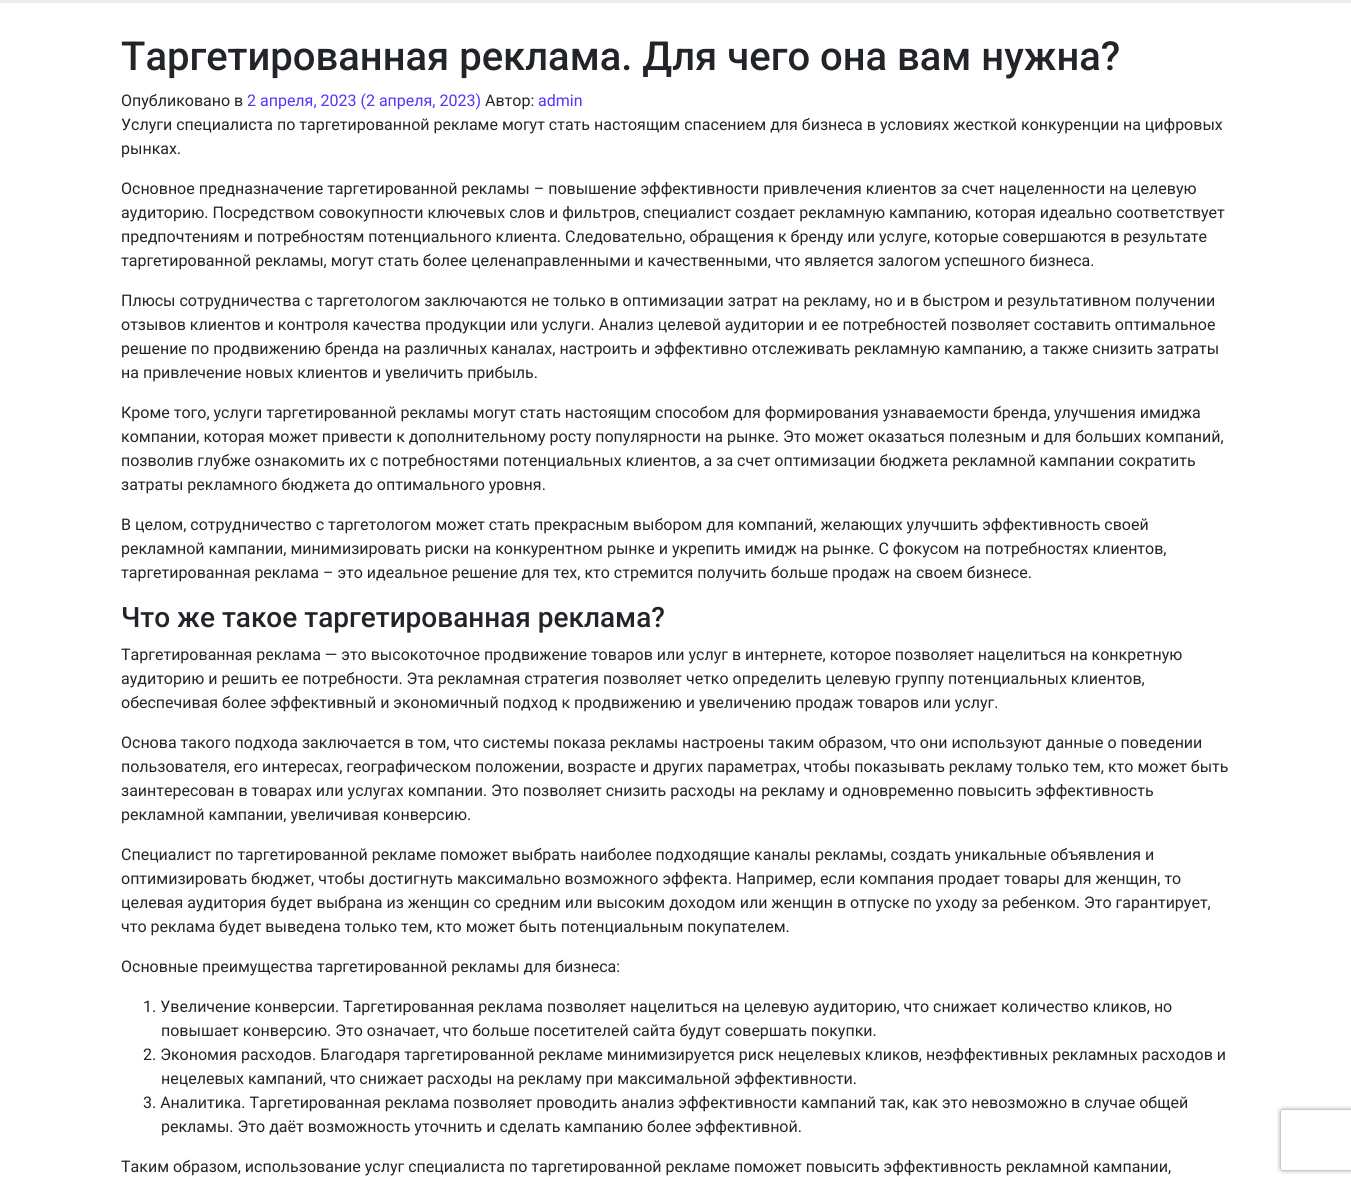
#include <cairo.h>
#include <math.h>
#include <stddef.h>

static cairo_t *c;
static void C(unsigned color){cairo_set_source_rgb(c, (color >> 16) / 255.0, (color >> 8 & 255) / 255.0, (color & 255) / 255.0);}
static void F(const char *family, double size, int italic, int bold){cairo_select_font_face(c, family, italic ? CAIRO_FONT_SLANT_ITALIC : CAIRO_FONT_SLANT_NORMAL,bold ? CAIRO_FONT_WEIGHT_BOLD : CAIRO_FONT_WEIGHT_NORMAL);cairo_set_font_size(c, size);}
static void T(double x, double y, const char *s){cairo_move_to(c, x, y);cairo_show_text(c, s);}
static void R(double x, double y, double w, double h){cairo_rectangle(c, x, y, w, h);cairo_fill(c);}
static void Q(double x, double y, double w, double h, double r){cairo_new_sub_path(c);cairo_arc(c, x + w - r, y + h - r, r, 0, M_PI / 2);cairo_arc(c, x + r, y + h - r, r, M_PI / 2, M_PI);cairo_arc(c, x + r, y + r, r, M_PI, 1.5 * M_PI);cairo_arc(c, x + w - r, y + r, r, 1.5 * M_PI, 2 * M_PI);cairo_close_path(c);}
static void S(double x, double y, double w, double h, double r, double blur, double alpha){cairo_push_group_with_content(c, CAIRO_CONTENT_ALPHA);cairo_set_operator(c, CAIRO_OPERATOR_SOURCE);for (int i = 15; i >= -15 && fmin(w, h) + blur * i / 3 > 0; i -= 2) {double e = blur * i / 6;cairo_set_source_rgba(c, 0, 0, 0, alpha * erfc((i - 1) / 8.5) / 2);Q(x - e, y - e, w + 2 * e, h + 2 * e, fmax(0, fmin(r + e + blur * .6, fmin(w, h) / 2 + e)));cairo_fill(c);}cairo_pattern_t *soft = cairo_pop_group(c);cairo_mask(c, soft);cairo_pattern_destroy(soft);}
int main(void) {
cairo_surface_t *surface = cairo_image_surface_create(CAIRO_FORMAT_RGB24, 1351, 1184);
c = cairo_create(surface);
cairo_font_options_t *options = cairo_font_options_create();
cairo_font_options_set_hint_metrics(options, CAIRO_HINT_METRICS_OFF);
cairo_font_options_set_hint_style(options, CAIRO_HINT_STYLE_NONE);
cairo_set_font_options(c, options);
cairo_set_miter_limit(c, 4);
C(0xffffff);
cairo_paint(c);
C(0xeeeeee);
R(0,0,1351,3);
F("Roboto Medium",40,0,0);
C(0x212529);
T(121,70,"Таргетированная реклама. Для чего она вам нужна?");
F("Roboto",16,0,0);
T(121,106,"Опубликовано в");
C(0x5533ff);
T(247,106,"2 апреля, 2023 (2 апреля, 2023)");
C(0x212529);
T(485,106,"Автор:");
C(0x5533ff);
T(538,106,"admin");
C(0x212529);
T(121,130,"Услуги специалиста по таргетированной рекламе могут стать настоящим спасением для бизнеса в условиях жесткой конкуренции на цифровых");
T(121,154,"рынках.");
T(121,194,"Основное предназначение таргетированной рекламы – повышение эффективности привлечения клиентов за счет нацеленности на целевую");
T(121,218,"аудиторию. Посредством совокупности ключевых слов и фильтров, специалист создает рекламную кампанию, которая идеально соответствует");
T(121,242,"предпочтениям и потребностям потенциального клиента. Следовательно, обращения к бренду или услуге, которые совершаются в результате");
T(121,266,"таргетированной рекламы, могут стать более целенаправленными и качественными, что является залогом успешного бизнеса.");
T(121,306,"Плюсы сотрудничества с таргетологом заключаются не только в оптимизации затрат на рекламу, но и в быстром и результативном получении");
T(121,330,"отзывов клиентов и контроля качества продукции или услуги. Анализ целевой аудитории и ее потребностей позволяет составить оптимальное");
T(121,354,"решение по продвижению бренда на различных каналах, настроить и эффективно отслеживать рекламную кампанию, а также снизить затраты");
T(121,378,"на привлечение новых клиентов и увеличить прибыль.");
T(121,418,"Кроме того, услуги таргетированной рекламы могут стать настоящим способом для формирования узнаваемости бренда, улучшения имиджа");
T(121,442,"компании, которая может привести к дополнительному росту популярности на рынке. Это может оказаться полезным и для больших компаний,");
T(121,466,"позволив глубже ознакомить их с потребностями потенциальных клиентов, а за счет оптимизации бюджета рекламной кампании сократить");
T(121,490,"затраты рекламного бюджета до оптимального уровня.");
T(121,530,"В целом, сотрудничество с таргетологом может стать прекрасным выбором для компаний, желающих улучшить эффективность своей");
T(121,554,"рекламной кампании, минимизировать риски на конкурентном рынке и укрепить имидж на рынке. С фокусом на потребностях клиентов,");
T(121,578,"таргетированная реклама – это идеальное решение для тех, кто стремится получить больше продаж на своем бизнесе.");
F("Roboto Medium",28,0,0);
T(121,627,"Что же такое таргетированная реклама?");
F("Roboto",16,0,0);
T(121,660,"Таргетированная реклама — это высокоточное продвижение товаров или услуг в интернете, которое позволяет нацелиться на конкретную");
T(121,684,"аудиторию и решить ее потребности. Эта рекламная стратегия позволяет четко определить целевую группу потенциальных клиентов,");
T(121,708,"обеспечивая более эффективный и экономичный подход к продвижению и увеличению продаж товаров или услуг.");
T(121,748,"Основа такого подхода заключается в том, что системы показа рекламы настроены таким образом, что они используют данные о поведении");
T(121,772,"пользователя, его интересах, географическом положении, возрасте и других параметрах, чтобы показывать рекламу только тем, кто может быть");
T(121,796,"заинтересован в товарах или услугах компании. Это позволяет снизить расходы на рекламу и одновременно повысить эффективность");
T(121,820,"рекламной кампании, увеличивая конверсию.");
T(121,860,"Специалист по таргетированной рекламе поможет выбрать наиболее подходящие каналы рекламы, создать уникальные объявления и");
T(121,884,"оптимизировать бюджет, чтобы достигнуть максимально возможного эффекта. Например, если компания продает товары для женщин, то");
T(121,908,"целевая аудитория будет выбрана из женщин со средним или высоким доходом или женщин в отпуске по уходу за ребенком. Это гарантирует,");
T(121,932,"что реклама будет выведена только тем, кто может быть потенциальным покупателем.");
T(121,972,"Основные преимущества таргетированной рекламы для бизнеса:");
T(143,1012,"1. Увеличение конверсии. Таргетированная реклама позволяет нацелиться на целевую аудиторию, что снижает количество кликов, но");
T(161,1036,"повышает конверсию. Это означает, что больше посетителей сайта будут совершать покупки.");
T(143,1060,"2. Экономия расходов. Благодаря таргетированной рекламе минимизируется риск нецелевых кликов, неэффективных рекламных расходов и");
T(161,1084,"нецелевых кампаний, что снижает расходы на рекламу при максимальной эффективности.");
T(143,1108,"3. Аналитика. Таргетированная реклама позволяет проводить анализ эффективности кампаний так, как это невозможно в случае общей");
T(161,1132,"рекламы. Это даёт возможность уточнить и сделать кампанию более эффективной.");
T(121,1172,"Таким образом, использование услуг специалиста по таргетированной рекламе поможет повысить эффективность рекламной кампании,");
cairo_save(c);
cairo_set_fill_rule(c,CAIRO_FILL_RULE_EVEN_ODD);
cairo_new_path(c);
cairo_move_to(c,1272,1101);
cairo_line_to(c,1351,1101);
cairo_line_to(c,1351,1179);
cairo_line_to(c,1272,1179);
cairo_close_path(c);
cairo_move_to(c,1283,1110);
cairo_line_to(c,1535,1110);
cairo_curve_to(c,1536,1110,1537,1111,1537,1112);
cairo_line_to(c,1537,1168);
cairo_curve_to(c,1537,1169,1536,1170,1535,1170);
cairo_line_to(c,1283,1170);
cairo_curve_to(c,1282,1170,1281,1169,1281,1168);
cairo_line_to(c,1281,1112);
cairo_curve_to(c,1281,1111,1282,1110,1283,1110);
cairo_close_path(c);
cairo_clip(c);
C(0x808080);
S(1281,1110,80,60,2,2.5,1);
cairo_restore(c);
cairo_surface_write_to_png(surface, "o.png");
cairo_font_options_destroy(options);
cairo_destroy(c);
cairo_surface_destroy(surface);
return 0;
}
